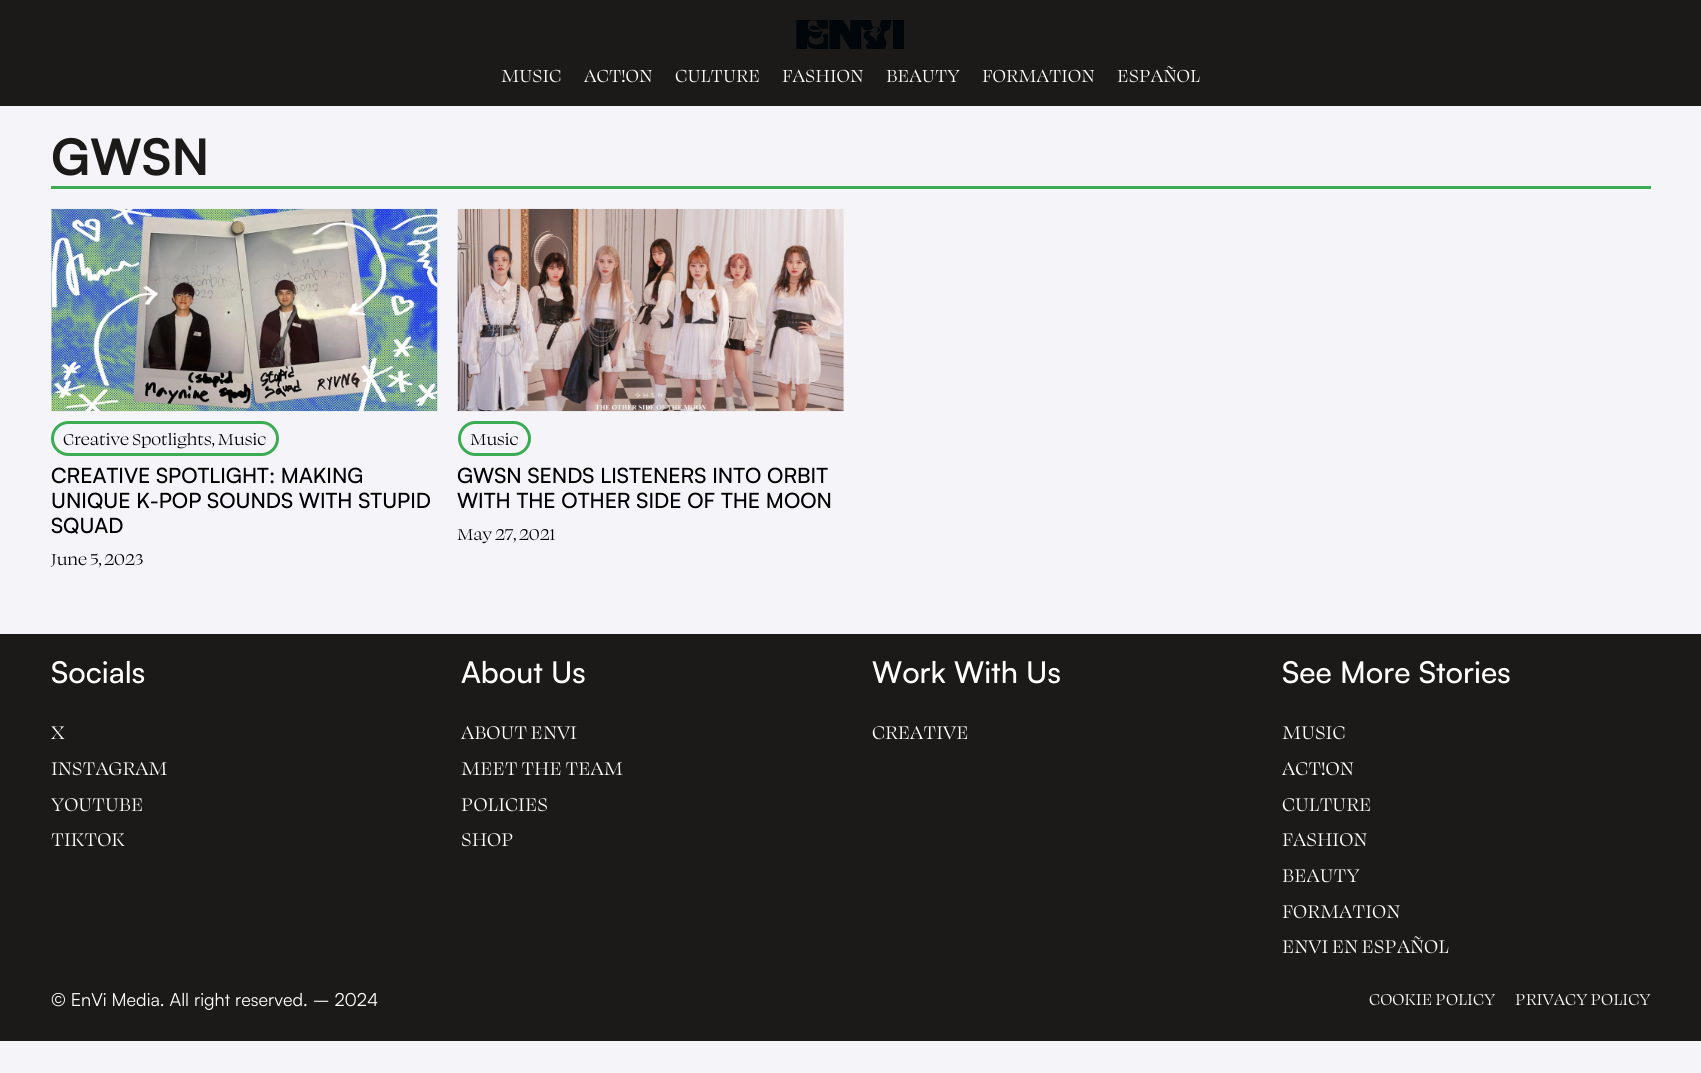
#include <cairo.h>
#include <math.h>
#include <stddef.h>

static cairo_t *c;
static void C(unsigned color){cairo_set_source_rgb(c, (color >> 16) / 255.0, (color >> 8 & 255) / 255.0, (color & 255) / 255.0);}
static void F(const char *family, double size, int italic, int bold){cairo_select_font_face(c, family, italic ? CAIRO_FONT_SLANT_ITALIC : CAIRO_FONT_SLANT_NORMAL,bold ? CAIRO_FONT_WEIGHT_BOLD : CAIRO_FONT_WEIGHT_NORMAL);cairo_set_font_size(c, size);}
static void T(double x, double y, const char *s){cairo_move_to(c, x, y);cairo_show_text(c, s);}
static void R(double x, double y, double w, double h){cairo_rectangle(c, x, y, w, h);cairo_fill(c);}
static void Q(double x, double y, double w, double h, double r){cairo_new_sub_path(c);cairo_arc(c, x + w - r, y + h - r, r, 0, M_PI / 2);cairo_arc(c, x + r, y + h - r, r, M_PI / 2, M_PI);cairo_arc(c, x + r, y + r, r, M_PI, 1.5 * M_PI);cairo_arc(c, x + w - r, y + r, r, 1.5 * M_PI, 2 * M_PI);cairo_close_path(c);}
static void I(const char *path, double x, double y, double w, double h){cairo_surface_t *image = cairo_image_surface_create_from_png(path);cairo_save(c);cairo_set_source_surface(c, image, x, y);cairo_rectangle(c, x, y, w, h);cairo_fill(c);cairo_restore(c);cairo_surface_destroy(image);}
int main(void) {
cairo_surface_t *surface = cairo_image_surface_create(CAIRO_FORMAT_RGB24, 1701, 1073);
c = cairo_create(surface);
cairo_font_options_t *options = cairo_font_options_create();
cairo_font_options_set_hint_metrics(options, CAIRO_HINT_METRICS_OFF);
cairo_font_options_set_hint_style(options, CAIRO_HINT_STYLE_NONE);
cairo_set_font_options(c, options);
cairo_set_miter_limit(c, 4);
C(0xf4f4f9);
cairo_paint(c);
C(0x1b1a19);
R(0,0,1701,106);
I("1.png",796,20,108,29);
F("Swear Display",20,0,0);
C(0xffffff);
T(501,82,"MUSIC");
T(584,82,"ACT!ON");
T(675,82,"CULTURE");
T(782,82,"FASHION");
T(886,82,"BEAUTY");
T(982,82,"FORMATION");
T(1117,82,"ESPAÑOL");
C(0x3bac53);
R(51,186,1600,3);
F("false",50,0,1);
C(0x1b1a19);
T(51,175,"GWSN");
I("2.png",51,208,387,204);
Q(52.5,422.5,225,32,16);
C(0x3bac53);
cairo_set_line_width(c,3);
cairo_stroke(c);
F("Swear Display",18,0,0);
C(0x000000);
T(63,445,"Creative Spotlights, Music");
F("Satoshi Medium",21,0,0);
T(51,483,"CREATIVE SPOTLIGHT: MAKING");
T(51,508,"UNIQUE K-POP SOUNDS WITH STUPID");
T(51,533,"SQUAD");
F("Swear Display",18,0,0);
T(51,565,"June 5, 2023");
I("3.png",457,208,387,204);
Q(459.5,422.5,70,32,16);
C(0x3bac53);
cairo_stroke(c);
C(0x000000);
T(470,445,"Music");
F("Satoshi Medium",21,0,0);
T(457,483,"GWSN SENDS LISTENERS INTO ORBIT");
T(457,508,"WITH THE OTHER SIDE OF THE MOON");
F("Swear Display",18,0,0);
T(457,540,"May 27, 2021");
C(0x1b1a19);
R(0,634,1701,407);
F("Satoshi Medium",30,0,0);
C(0xffffff);
T(51,683,"Socials");
F("Swear Display",21,0,0);
T(51,739,"X");
T(51,775,"INSTAGRAM");
T(51,811,"YOUTUBE");
T(51,846,"TIKTOK");
F("Satoshi Medium",30,0,0);
T(461,683,"About Us");
F("Swear Display",21,0,0);
T(461,739,"ABOUT ENVI");
T(461,775,"MEET THE TEAM");
T(461,811,"POLICIES");
T(461,846,"SHOP");
F("Satoshi Medium",30,0,0);
T(872,683,"Work With Us");
F("Swear Display",21,0,0);
T(872,739,"CREATIVE");
F("Satoshi Medium",30,0,0);
T(1282,683,"See More Stories");
F("Swear Display",21,0,0);
T(1282,739,"MUSIC");
T(1282,775,"ACT!ON");
T(1282,811,"CULTURE");
T(1282,846,"FASHION");
T(1282,882,"BEAUTY");
T(1282,918,"FORMATION");
T(1282,953,"ENVI EN ESPAÑOL");
F("false",18,0,0);
T(51,1006,"© EnVi Media. All right reserved. – 2024");
F("Swear Display",18,0,0);
T(1369,1005,"COOKIE POLICY");
T(1515,1005,"PRIVACY POLICY");
cairo_surface_write_to_png(surface, "o.png");
cairo_font_options_destroy(options);
cairo_destroy(c);
cairo_surface_destroy(surface);
return 0;
}
